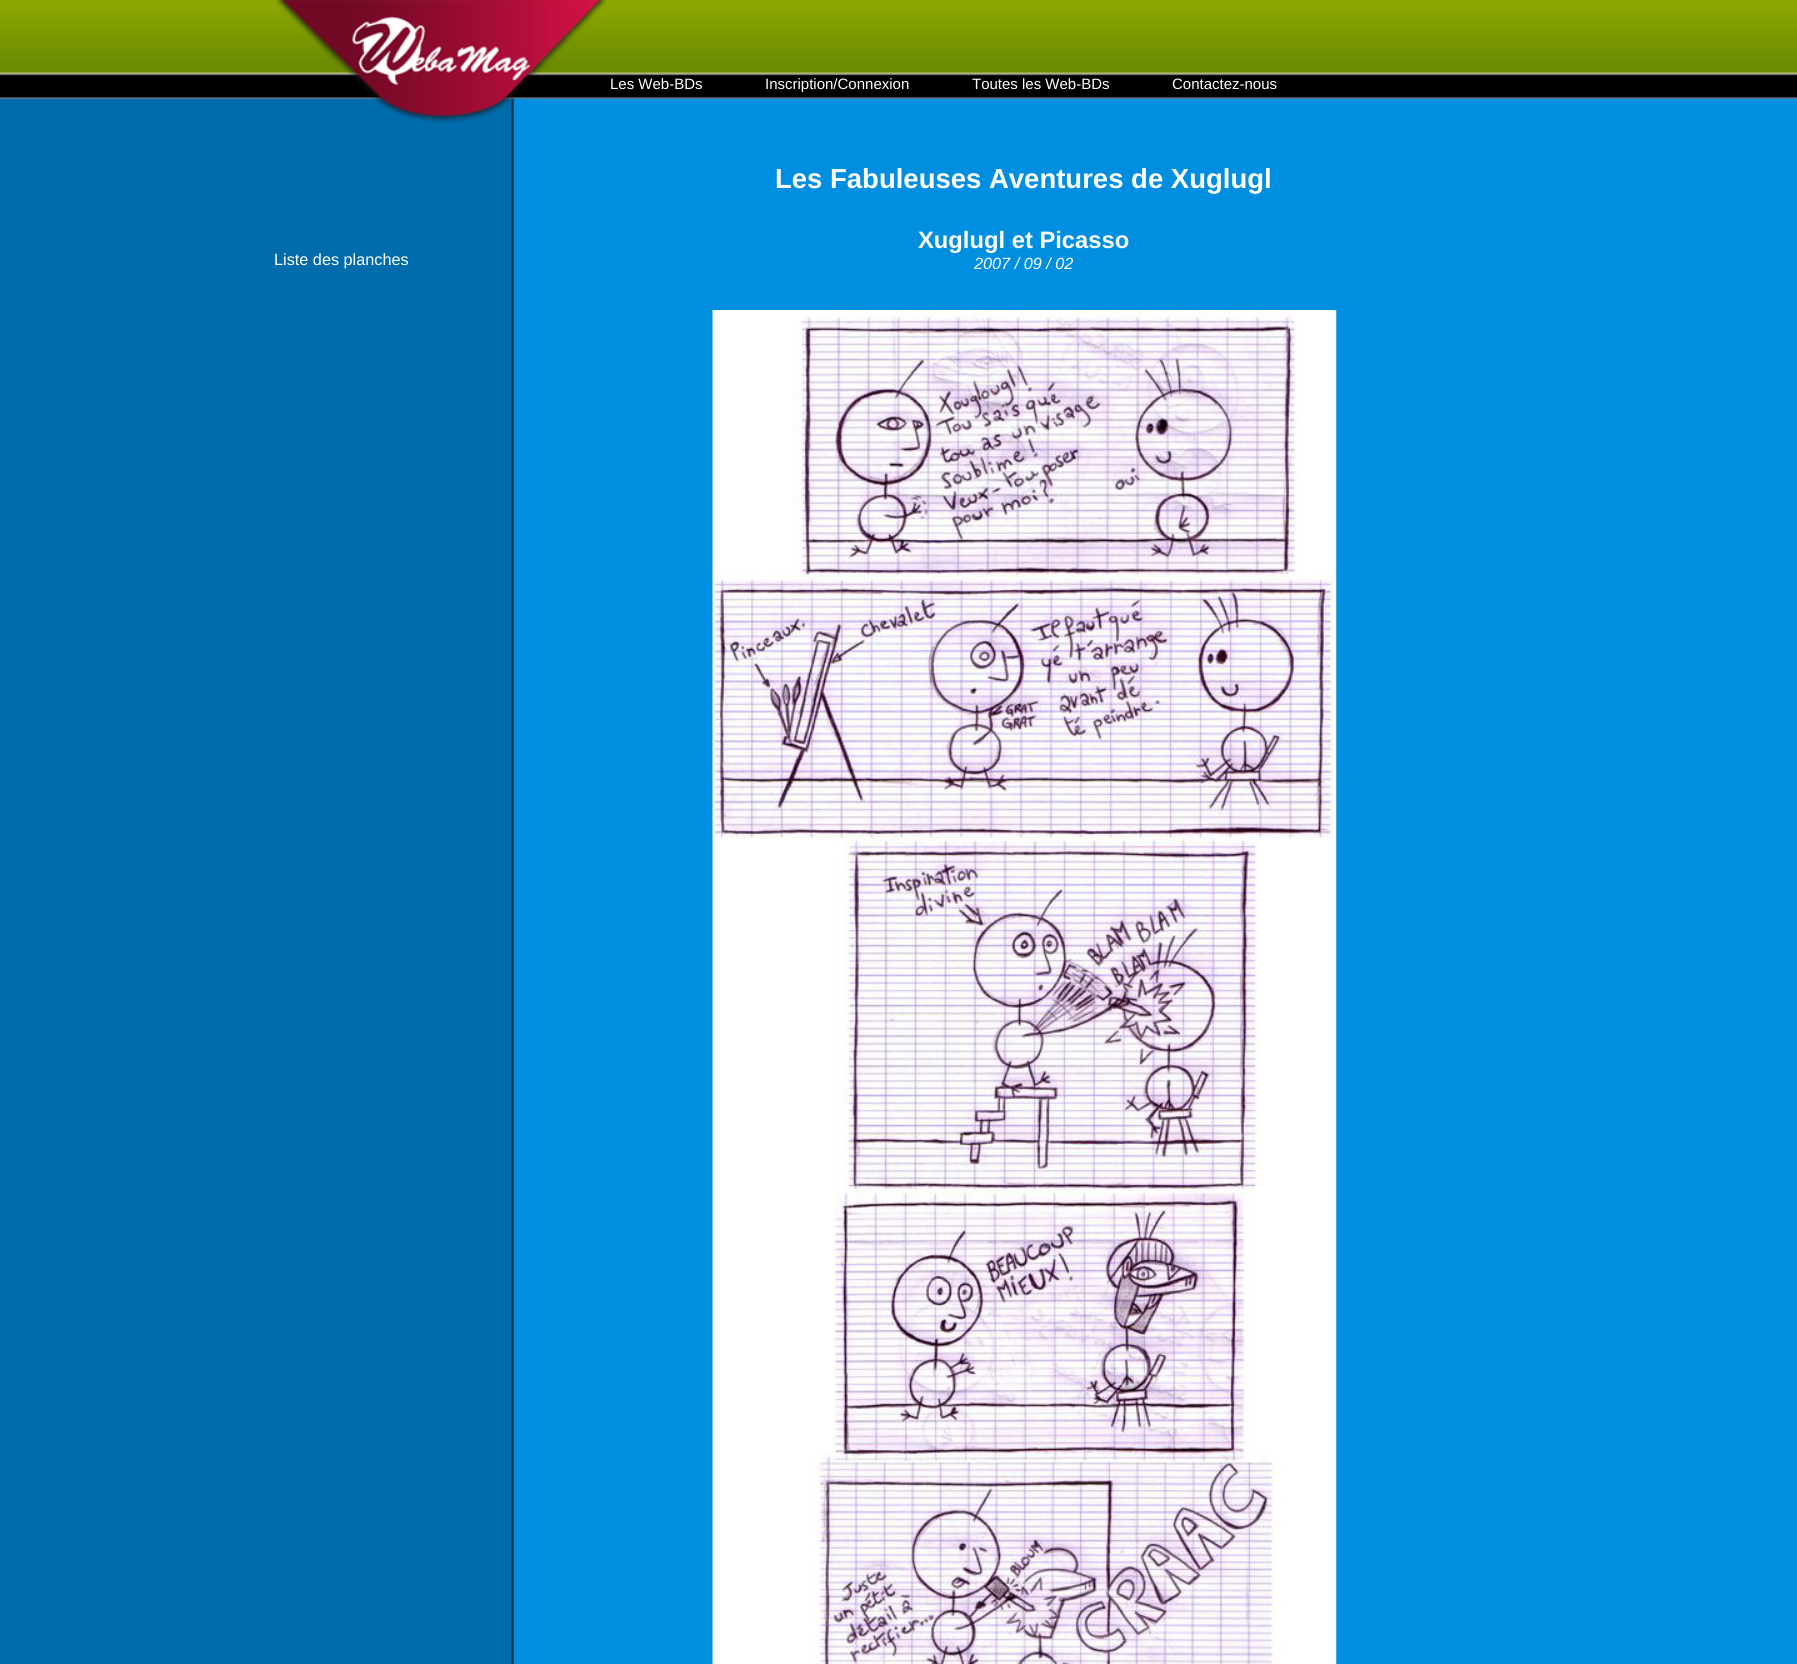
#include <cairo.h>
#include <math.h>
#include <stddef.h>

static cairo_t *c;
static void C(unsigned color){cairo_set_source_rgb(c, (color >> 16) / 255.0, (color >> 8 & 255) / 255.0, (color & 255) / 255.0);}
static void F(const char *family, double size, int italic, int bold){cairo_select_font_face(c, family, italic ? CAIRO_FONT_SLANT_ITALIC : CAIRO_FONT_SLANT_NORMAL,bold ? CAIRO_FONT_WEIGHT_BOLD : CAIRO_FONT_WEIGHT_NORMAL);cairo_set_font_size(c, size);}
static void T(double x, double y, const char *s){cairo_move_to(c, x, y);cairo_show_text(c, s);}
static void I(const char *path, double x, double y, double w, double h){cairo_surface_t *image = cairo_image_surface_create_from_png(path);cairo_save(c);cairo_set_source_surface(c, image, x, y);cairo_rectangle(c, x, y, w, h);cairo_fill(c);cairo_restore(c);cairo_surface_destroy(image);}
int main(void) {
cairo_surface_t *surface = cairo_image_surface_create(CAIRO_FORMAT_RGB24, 1797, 1664);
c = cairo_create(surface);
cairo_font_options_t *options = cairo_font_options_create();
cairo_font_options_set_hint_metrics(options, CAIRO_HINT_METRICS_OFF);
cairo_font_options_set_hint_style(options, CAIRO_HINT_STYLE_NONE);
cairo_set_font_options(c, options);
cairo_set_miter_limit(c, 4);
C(0x008ee0);
cairo_paint(c);
I("1.png",0,98,514,1566);
I("2.png",0,0,1797,99);
I("3.png",275,0,332,123);
F("Liberation Sans",15,0,0);
C(0xffffff);
T(610,89,"Les Web-BDs");
T(765,89,"Inscription/Connexion");
T(972,89,"Toutes les Web-BDs");
T(1172,89,"Contactez-nous");
F("Liberation Sans",16.25,0,0);
T(274,265,"Liste des planches");
F("Liberation Sans",27.5,0,1);
T(775,188,"Les Fabuleuses Aventures de Xuglugl");
F("Liberation Sans",23.75,0,1);
T(918,248,"Xuglugl et Picasso");
F("Liberation Sans",16.25,1,0);
T(974,269,"2007 / 09 / 02");
I("4.png",712,310,625,1354);
cairo_surface_write_to_png(surface, "o.png");
cairo_font_options_destroy(options);
cairo_destroy(c);
cairo_surface_destroy(surface);
return 0;
}
